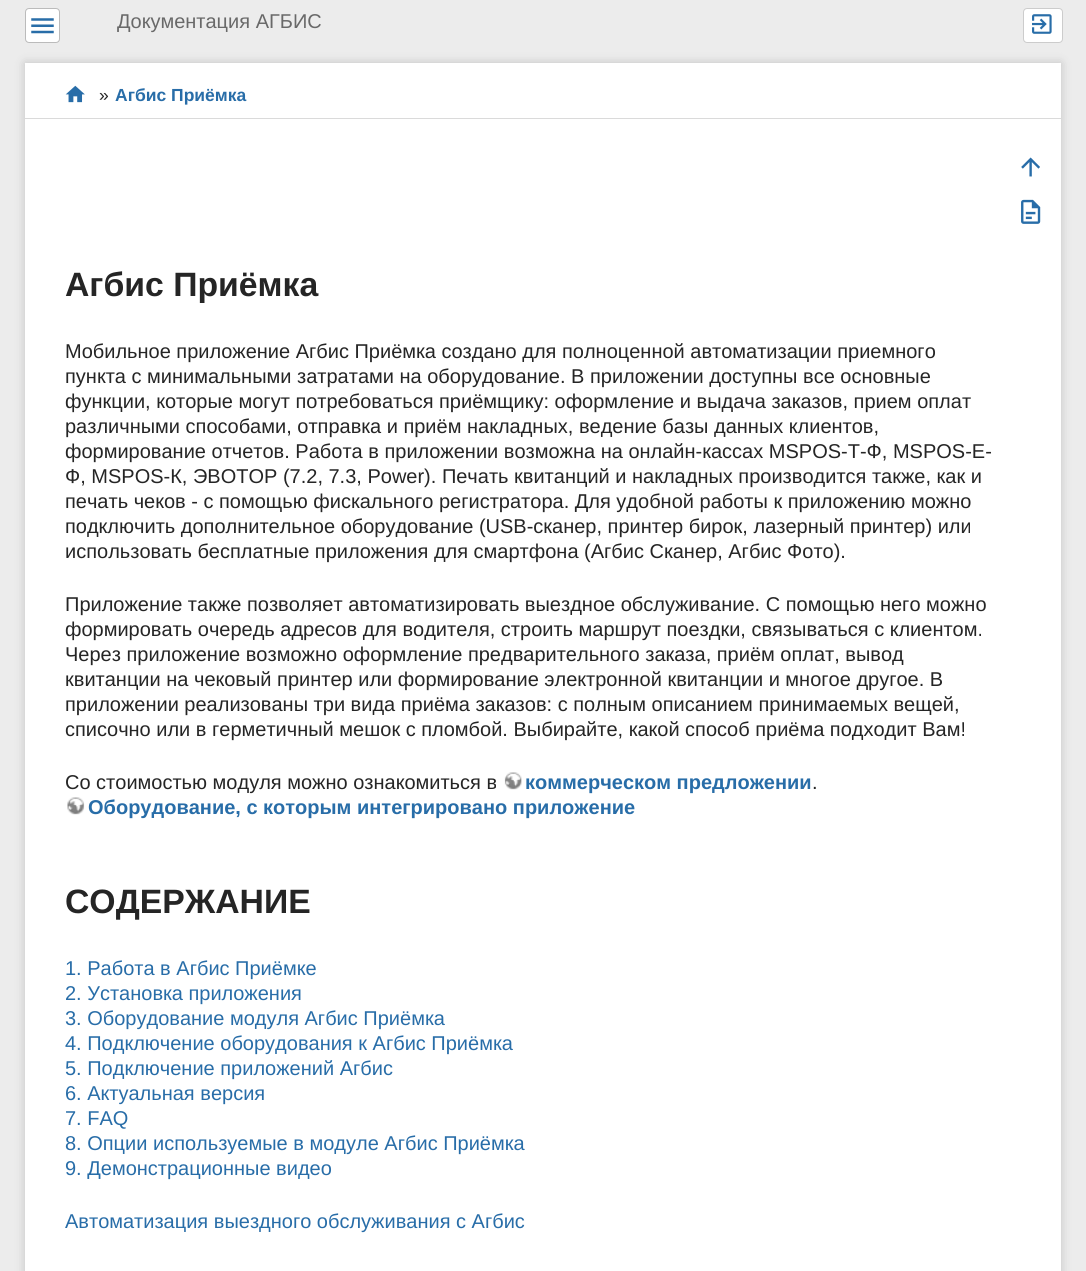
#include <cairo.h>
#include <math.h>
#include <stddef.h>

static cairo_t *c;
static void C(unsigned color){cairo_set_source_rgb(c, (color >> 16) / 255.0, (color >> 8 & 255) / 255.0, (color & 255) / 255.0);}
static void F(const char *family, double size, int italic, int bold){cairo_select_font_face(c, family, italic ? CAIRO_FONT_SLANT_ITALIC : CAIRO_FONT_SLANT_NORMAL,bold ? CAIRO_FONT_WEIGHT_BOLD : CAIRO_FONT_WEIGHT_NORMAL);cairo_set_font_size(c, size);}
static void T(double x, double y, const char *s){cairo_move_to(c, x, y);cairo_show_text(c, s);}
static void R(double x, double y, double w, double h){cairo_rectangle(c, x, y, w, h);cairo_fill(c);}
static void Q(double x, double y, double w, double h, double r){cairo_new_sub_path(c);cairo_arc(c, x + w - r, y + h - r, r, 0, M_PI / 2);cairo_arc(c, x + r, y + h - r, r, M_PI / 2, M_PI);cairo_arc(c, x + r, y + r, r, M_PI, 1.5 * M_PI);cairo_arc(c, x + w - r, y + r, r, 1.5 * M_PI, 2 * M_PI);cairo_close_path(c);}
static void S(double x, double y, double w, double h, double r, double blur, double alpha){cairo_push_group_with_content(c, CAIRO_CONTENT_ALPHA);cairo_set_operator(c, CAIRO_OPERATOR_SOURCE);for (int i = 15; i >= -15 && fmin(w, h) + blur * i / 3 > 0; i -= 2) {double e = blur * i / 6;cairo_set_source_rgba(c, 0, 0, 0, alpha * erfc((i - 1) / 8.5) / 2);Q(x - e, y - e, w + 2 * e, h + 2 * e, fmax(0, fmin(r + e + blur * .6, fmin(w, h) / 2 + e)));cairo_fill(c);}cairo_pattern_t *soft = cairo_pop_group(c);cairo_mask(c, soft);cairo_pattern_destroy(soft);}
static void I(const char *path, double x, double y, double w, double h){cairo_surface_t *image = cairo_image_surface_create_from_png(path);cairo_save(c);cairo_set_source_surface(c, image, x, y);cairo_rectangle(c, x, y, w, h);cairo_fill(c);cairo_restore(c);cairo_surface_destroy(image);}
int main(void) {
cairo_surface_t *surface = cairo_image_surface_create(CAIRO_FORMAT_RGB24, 1086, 1271);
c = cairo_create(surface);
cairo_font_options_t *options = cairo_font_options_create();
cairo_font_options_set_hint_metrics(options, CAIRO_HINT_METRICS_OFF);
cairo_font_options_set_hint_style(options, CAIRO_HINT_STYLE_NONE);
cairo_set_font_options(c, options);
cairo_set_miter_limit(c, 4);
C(0xececec);
cairo_paint(c);
C(0xffffff);
Q(25.5,8.5,34,34,3.5);
cairo_fill_preserve(c);
C(0xbbbbbb);
cairo_set_line_width(c,1);
cairo_stroke(c);
I("1.png",31,18,23,16);
F("Liberation Sans",20,0,0);
C(0x696969);
T(117,28,"Документация АГБИС");
C(0xffffff);
Q(1023.5,8.5,39,34,3.5);
cairo_fill_preserve(c);
C(0xcccccc);
cairo_stroke(c);
I("2.png",1032,14,20,20);
C(0x999999);
S(25,63,1036,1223,0,5,.5);
C(0xffffff);
R(25,63,1036,55);
C(0xdadada);
R(25,118,1036,1);
I("3.png",65,85,20,18);
F("Liberation Sans",17.5,0,0);
C(0x252525);
T(99,101,"»");
F("Liberation Sans",17.5,0,1);
C(0x286da8);
T(115,101,"Агбис Приёмка");
C(0xffffff);
R(25,119,1036,1152);
I("4.png",1021,157,19,20);
I("5.png",1021,199,20,25);
F("Liberation Sans",33.75,0,1);
C(0x252525);
T(65,296,"Агбис Приёмка");
F("Liberation Sans",20,0,0);
T(65,358,"Мобильное приложение Агбис Приёмка создано для полноценной автоматизации приемного");
T(65,383,"пункта с минимальными затратами на оборудование. В приложении доступны все основные");
T(65,408,"функции, которые могут потребоваться приёмщику: оформление и выдача заказов, прием оплат");
T(65,433,"различными способами, отправка и приём накладных, ведение базы данных клиентов,");
T(65,458,"формирование отчетов. Работа в приложении возможна на онлайн-кассах MSPOS-Т-Ф, MSPOS-E-");
T(65,483,"Ф, MSPOS-К, ЭВОТОР (7.2, 7.3, Power). Печать квитанций и накладных производится также, как и");
T(65,508,"печать чеков - с помощью фискального регистратора. Для удобной работы к приложению можно");
T(65,533,"подключить дополнительное оборудование (USB-сканер, принтер бирок, лазерный принтер) или");
T(65,558,"использовать бесплатные приложения для смартфона (Агбис Сканер, Агбис Фото).");
T(65,611,"Приложение также позволяет автоматизировать выездное обслуживание. С помощью него можно");
T(65,636,"формировать очередь адресов для водителя, строить маршрут поездки, связываться с клиентом.");
T(65,661,"Через приложение возможно оформление предварительного заказа, приём оплат, вывод");
T(65,686,"квитанции на чековый принтер или формирование электронной квитанции и многое другое. В");
T(65,711,"приложении реализованы три вида приёма заказов: с полным описанием принимаемых вещей,");
T(65,736,"списочно или в герметичный мешок с пломбой. Выбирайте, какой способ приёма подходит Вам!");
T(65,789,"Со стоимостью модуля можно ознакомиться в");
I("6.png",504,772,18,18);
F("Liberation Sans",20,0,1);
C(0x286da8);
T(525,789,"коммерческом предложении");
F("Liberation Sans",20,0,0);
C(0x252525);
T(812,789,".");
I("7.png",67,797,18,18);
F("Liberation Sans",20,0,1);
C(0x286da8);
T(88,814,"Оборудование, с которым интегрировано приложение");
F("Liberation Sans",33.75,0,1);
C(0x252525);
T(65,913,"СОДЕРЖАНИЕ");
F("Liberation Sans",20,0,0);
C(0x286da8);
T(65,975,"1. Работа в Агбис Приёмке");
T(65,1000,"2. Установка приложения");
T(65,1025,"3. Оборудование модуля Агбис Приёмка");
T(65,1050,"4. Подключение оборудования к Агбис Приёмка");
T(65,1075,"5. Подключение приложений Агбис");
T(65,1100,"6. Актуальная версия");
T(65,1125,"7. FAQ");
T(65,1150,"8. Опции используемые в модуле Агбис Приёмка");
T(65,1175,"9. Демонстрационные видео");
T(65,1228,"Автоматизация выездного обслуживания с Агбис");
cairo_surface_write_to_png(surface, "o.png");
cairo_font_options_destroy(options);
cairo_destroy(c);
cairo_surface_destroy(surface);
return 0;
}
